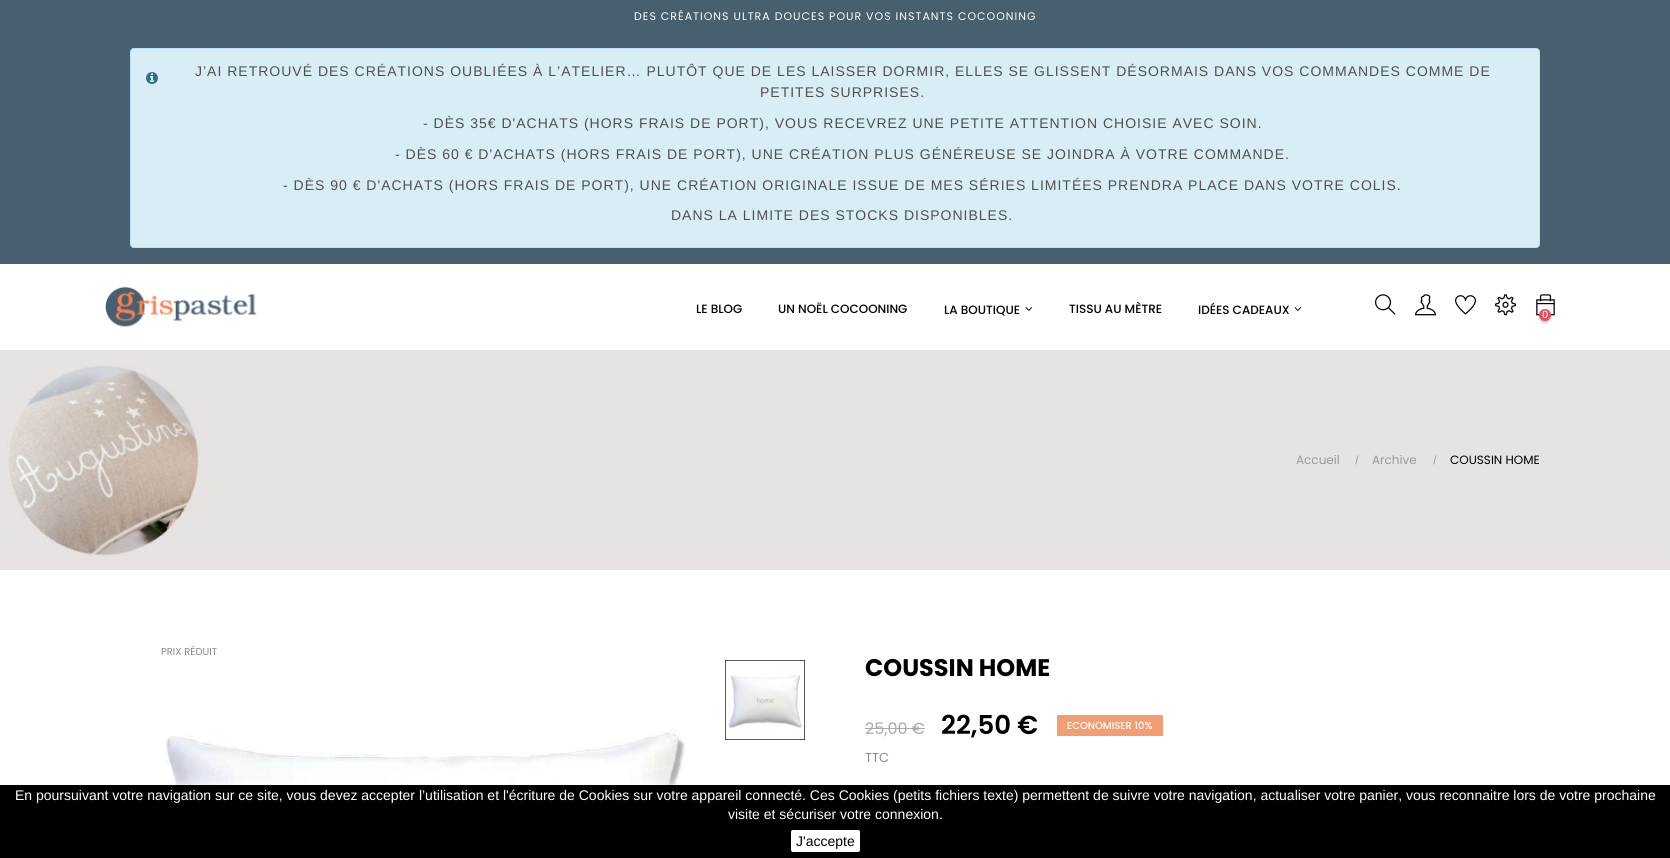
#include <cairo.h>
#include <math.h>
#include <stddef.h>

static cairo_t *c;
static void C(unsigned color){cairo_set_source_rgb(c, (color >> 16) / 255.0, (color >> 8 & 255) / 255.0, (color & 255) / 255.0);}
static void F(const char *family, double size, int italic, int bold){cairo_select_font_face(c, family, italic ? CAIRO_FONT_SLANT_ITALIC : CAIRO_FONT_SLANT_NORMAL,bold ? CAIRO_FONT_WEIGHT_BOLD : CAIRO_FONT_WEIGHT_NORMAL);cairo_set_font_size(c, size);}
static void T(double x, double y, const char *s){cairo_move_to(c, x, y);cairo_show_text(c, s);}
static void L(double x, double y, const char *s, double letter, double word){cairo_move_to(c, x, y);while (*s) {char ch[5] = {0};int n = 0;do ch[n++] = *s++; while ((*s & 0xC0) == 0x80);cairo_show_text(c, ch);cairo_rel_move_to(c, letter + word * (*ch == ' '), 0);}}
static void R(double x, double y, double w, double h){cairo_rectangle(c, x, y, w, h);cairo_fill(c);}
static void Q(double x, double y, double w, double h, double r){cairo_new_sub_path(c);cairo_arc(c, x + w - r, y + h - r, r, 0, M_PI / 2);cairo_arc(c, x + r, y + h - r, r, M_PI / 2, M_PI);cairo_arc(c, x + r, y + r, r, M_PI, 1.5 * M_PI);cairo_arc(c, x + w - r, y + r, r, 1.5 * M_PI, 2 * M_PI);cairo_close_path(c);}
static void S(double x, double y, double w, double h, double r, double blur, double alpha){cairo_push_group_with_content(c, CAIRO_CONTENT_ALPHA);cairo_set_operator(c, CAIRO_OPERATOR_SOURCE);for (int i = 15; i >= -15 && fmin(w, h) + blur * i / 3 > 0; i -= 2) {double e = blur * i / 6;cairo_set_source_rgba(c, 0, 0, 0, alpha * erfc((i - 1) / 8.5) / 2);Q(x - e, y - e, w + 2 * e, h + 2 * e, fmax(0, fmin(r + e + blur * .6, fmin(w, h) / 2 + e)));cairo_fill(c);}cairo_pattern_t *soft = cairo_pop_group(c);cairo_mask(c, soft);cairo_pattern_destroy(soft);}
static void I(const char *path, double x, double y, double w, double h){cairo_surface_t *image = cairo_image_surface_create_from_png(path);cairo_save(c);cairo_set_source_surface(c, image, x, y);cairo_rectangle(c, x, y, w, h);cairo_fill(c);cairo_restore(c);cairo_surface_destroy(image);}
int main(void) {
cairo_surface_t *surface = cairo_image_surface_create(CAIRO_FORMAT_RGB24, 1670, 858);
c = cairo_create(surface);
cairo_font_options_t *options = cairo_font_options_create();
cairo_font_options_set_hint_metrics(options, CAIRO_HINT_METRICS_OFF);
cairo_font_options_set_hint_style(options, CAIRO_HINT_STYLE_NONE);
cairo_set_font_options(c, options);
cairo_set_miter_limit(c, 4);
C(0xffffff);
cairo_paint(c);
C(0x485f6f);
R(0,0,1670,264);
F("Poppins",11,0,0);
C(0xffffff);
L(634,20,"DES CRÉATIONS ULTRA DOUCES POUR VOS INSTANTS COCOONING",1,0);
C(0xd9edf7);
Q(130.5,48.5,1409,199,3.5);
cairo_fill_preserve(c);
C(0xbcdff1);
cairo_set_line_width(c,1);
cairo_stroke(c);
I("1.png",146,72,12,12);
F("Liberation Sans",14,0,0);
C(0x505050);
L(195,76,"J’AI RETROUVÉ DES CRÉATIONS OUBLIÉES À L’ATELIER… PLUTÔT QUE DE LES LAISSER DORMIR, ELLES SE GLISSENT DÉSORMAIS DANS VOS COMMANDES COMME DE",1,0);
L(760,97,"PETITES SURPRISES.",1,0);
L(423,128,"- DÈS 35€ D'ACHATS (HORS FRAIS DE PORT), VOUS RECEVREZ UNE PETITE ATTENTION CHOISIE AVEC SOIN.",1,0);
L(395,159,"- DÈS 60 € D'ACHATS (HORS FRAIS DE PORT), UNE CRÉATION PLUS GÉNÉREUSE SE JOINDRA À VOTRE COMMANDE.",1,0);
L(283,190,"- DÈS 90 € D'ACHATS (HORS FRAIS DE PORT), UNE CRÉATION ORIGINALE ISSUE DE MES SÉRIES LIMITÉES PRENDRA PLACE DANS VOTRE COLIS.",1,0);
L(671,220,"DANS LA LIMITE DES STOCKS DISPONIBLES.",1,0);
I("2.png",105,286,152,41);
F("Poppins Medium",12,0,0);
C(0x000000);
T(696,313,"LE BLOG");
T(778,313,"UN NOËL COCOONING");
T(944,314,"LA BOUTIQUE");
I("3.png",1025,307,8,4);
T(1069,313,"TISSU AU MÈTRE");
T(1198,314,"IDÉES CADEAUX");
I("3.png",1294,307,8,4);
I("4.png",1375,294,21,21);
I("5.png",1415,294,21,22);
I("6.png",1455,295,21,20);
I("7.png",1495,294,21,22);
I("8.png",1536,294,19,22);
C(0x000000);
S(1539,311,12,12,6,1,.2);
C(0xe0525c);
cairo_arc(c,1545,315,6,0,2 * M_PI);
cairo_fill(c);
F("Poppins",10,0,0);
C(0xffffff);
T(1542,318,"0");
I("9.png",0,350,1670,220);
F("Poppins",12,0,0);
C(0x999999);
T(1296,464,"Accueil");
F("Poppins",8,0,0);
C(0x888888);
T(1355,463,"/");
F("Poppins",12,0,0);
C(0x999999);
T(1372,464,"Archive");
F("Poppins",8,0,0);
C(0x888888);
T(1433,463,"/");
F("Poppins",12,0,0);
C(0x000000);
T(1450,464,"COUSSIN HOME");
F("Poppins",10,0,0);
C(0x888888);
T(161,655,"PRIX RÉDUIT");
I("10.png",165,730,520,55);
cairo_rectangle(c,725.5,660.5,79,79);
C(0x414141);
cairo_stroke(c);
I("11.png",725,660,80,80);
F("Poppins",24,0,1);
C(0x000000);
T(865,676,"COUSSIN HOME");
F("Poppins",16,0,0);
C(0xacaaa6);
T(865,734,"25,00 €");
R(865,728,60,1);
F("Poppins SemiBold",26,0,0);
C(0x000000);
T(941,734,"22,50 €");
C(0xf39d72);
R(1057,715,106,21);
F("Poppins Medium",10,0,0);
C(0xffffff);
T(1067,729,"ECONOMISER 10%");
F("Poppins",13,0,0);
C(0x888888);
T(865,762,"TTC");
C(0xffffff);
S(0,785,1670,73,0,5,1);
C(0x000000);
R(0,785,1670,73);
F("Liberation Sans",14,0,0);
C(0xffffff);
T(15,800,"En poursuivant votre navigation sur ce site, vous devez accepter l’utilisation et l'écriture de Cookies sur votre appareil connecté. Ces Cookies (petits fichiers texte) permettent de suivre votre navigation, actualiser votre panier, vous reconnaitre lors de votre prochaine");
T(728,819,"visite et sécuriser votre connexion.");
Q(791,830,69,22,2);
cairo_fill(c);
C(0x000000);
T(796,846,"J'accepte");
cairo_surface_write_to_png(surface, "o.png");
cairo_font_options_destroy(options);
cairo_destroy(c);
cairo_surface_destroy(surface);
return 0;
}
